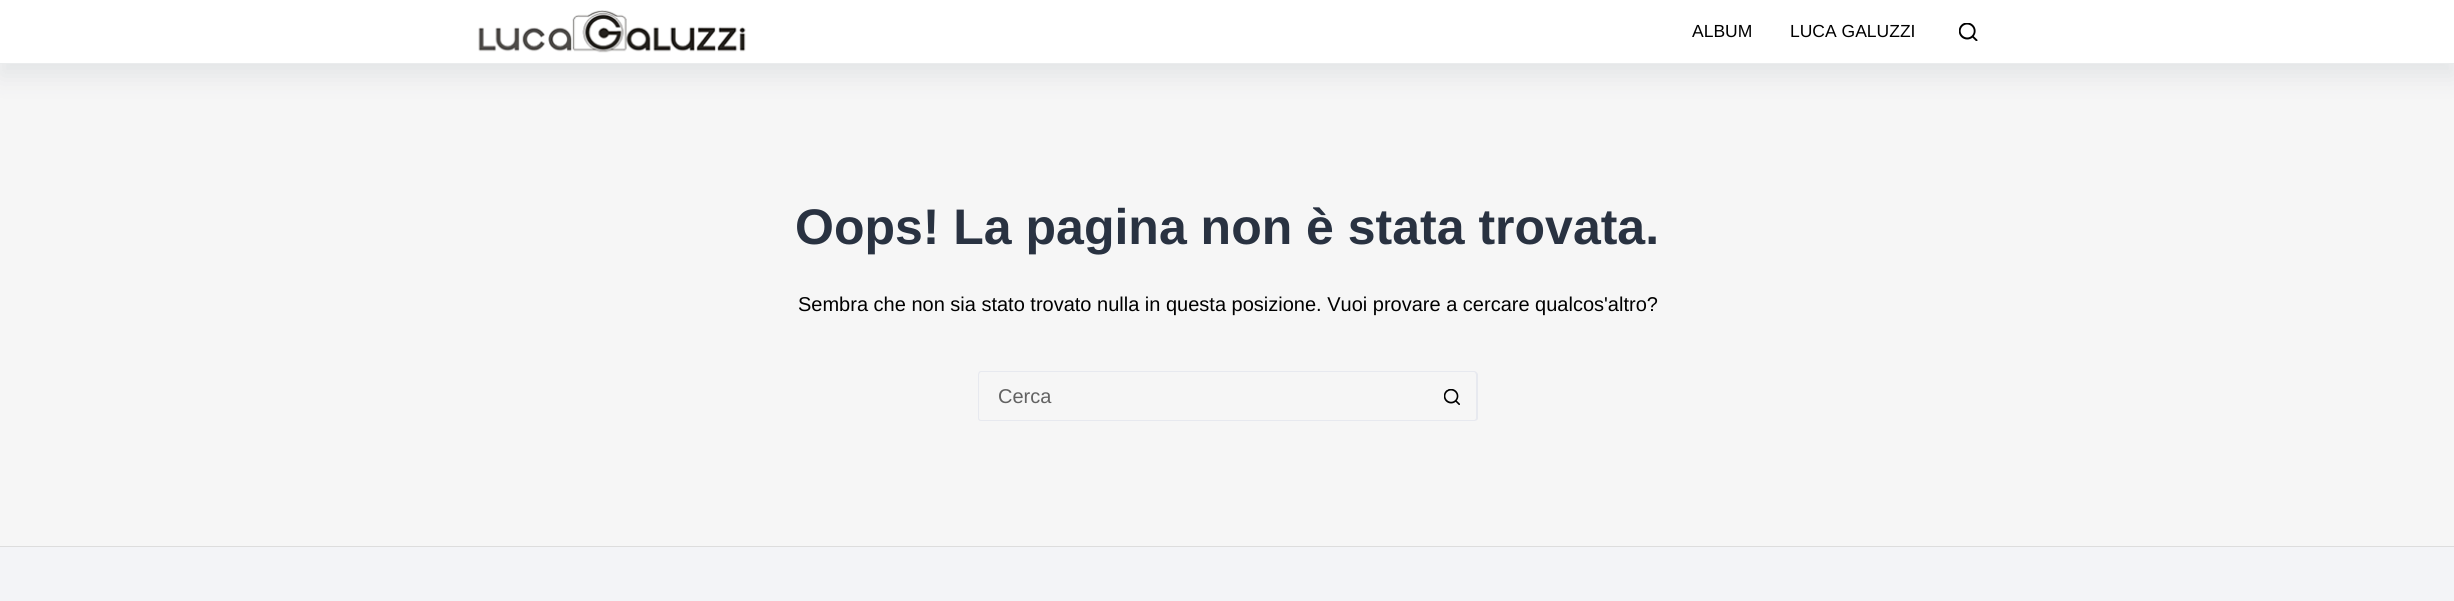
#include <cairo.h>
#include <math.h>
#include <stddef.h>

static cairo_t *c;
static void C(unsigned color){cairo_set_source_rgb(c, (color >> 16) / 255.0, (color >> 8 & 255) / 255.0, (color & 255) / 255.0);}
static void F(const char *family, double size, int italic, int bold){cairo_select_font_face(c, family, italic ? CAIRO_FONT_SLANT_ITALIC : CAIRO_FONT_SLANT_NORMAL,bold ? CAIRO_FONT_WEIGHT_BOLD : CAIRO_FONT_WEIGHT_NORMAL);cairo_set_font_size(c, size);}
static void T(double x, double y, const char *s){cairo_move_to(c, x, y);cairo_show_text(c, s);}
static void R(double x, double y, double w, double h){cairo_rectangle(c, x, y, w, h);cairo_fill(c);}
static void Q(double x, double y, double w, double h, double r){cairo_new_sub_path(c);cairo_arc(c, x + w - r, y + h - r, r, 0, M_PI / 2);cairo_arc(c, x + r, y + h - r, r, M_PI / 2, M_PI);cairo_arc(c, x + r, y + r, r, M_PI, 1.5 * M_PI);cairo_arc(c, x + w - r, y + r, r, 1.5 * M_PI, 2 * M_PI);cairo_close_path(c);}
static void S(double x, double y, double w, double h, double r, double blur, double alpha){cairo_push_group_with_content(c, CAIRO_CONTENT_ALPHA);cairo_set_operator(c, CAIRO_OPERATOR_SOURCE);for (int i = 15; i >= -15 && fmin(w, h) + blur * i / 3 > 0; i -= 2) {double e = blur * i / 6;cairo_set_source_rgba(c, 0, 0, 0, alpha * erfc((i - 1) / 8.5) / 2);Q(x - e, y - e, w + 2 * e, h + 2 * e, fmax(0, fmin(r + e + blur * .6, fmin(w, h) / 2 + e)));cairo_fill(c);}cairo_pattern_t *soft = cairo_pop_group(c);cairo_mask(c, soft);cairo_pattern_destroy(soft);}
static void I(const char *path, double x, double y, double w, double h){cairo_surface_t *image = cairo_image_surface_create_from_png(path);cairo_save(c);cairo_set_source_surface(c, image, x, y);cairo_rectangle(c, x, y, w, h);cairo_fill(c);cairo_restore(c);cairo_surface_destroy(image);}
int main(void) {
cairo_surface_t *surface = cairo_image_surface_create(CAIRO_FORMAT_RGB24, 2454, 601);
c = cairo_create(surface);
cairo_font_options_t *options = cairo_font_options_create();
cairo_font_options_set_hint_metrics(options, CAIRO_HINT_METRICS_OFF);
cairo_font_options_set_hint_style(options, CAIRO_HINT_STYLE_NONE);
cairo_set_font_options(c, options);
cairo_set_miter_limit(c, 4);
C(0xf6f6f6);
cairo_paint(c);
C(0x2b3d4f);
S(0,13,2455,63,0,12.5,.1);
C(0xffffff);
R(0,0,2454,63);
C(0xeaeced);
R(0,63,2454,1);
I("1.png",478,10,268,43);
F("Liberation Sans",17.5,0,0);
C(0x000000);
T(1692,37,"ALBUM");
T(1790,37,"LUCA GALUZZI");
I("2.png",1959,23,19,18);
F("Liberation Sans",50,0,1);
C(0x293241);
T(795,244,"Oops! La pagina non è stata trovata.");
F("Liberation Sans",20,0,0);
C(0x000000);
T(798,311,"Sembra che non sia stato trovato nulla in questa posizione. Vuoi provare a cercare qualcos'altro?");
C(0xe7e9ef);
cairo_set_fill_rule(c,CAIRO_FILL_RULE_EVEN_ODD);
cairo_new_path(c);
cairo_move_to(c,981,371);
cairo_line_to(c,1428,371);
cairo_line_to(c,1428,421);
cairo_line_to(c,981,421);
cairo_curve_to(c,979,421,978,420,978,418);
cairo_line_to(c,978,375);
cairo_curve_to(c,978,373,979,371,981,371);
cairo_close_path(c);
cairo_move_to(c,981,372);
cairo_line_to(c,1428,372);
cairo_line_to(c,1428,420);
cairo_line_to(c,981,420);
cairo_curve_to(c,980,420,979,419,979,418);
cairo_line_to(c,979,375);
cairo_curve_to(c,979,374,980,372,981,372);
cairo_close_path(c);
cairo_fill(c);
C(0x626262);
T(998,403,"Cerca");
C(0xe7e9ef);
cairo_new_path(c);
cairo_move_to(c,1428,371);
cairo_line_to(c,1474,371);
cairo_curve_to(c,1476,371,1478,373,1478,375);
cairo_line_to(c,1478,418);
cairo_curve_to(c,1478,420,1476,421,1474,421);
cairo_line_to(c,1428,421);
cairo_close_path(c);
cairo_move_to(c,1428,372);
cairo_line_to(c,1474,372);
cairo_curve_to(c,1475,372,1476,374,1476,375);
cairo_line_to(c,1476,418);
cairo_curve_to(c,1476,419,1475,420,1474,420);
cairo_line_to(c,1428,420);
cairo_close_path(c);
cairo_fill(c);
I("3.png",1444,389,16,16);
cairo_new_path(c);
cairo_move_to(c,1446.5,389);
cairo_curve_to(c,1450.5,385.5,1456.5,386.5,1459.5,390);
C(0xf6f6f6);
cairo_set_line_width(c,1.9);
cairo_set_line_cap(c,CAIRO_LINE_CAP_ROUND);
cairo_stroke(c);
C(0xf3f4f7);
R(0,547,2454,54);
C(0xdddddd);
R(0,546,2454,1);
cairo_surface_write_to_png(surface, "o.png");
cairo_font_options_destroy(options);
cairo_destroy(c);
cairo_surface_destroy(surface);
return 0;
}
